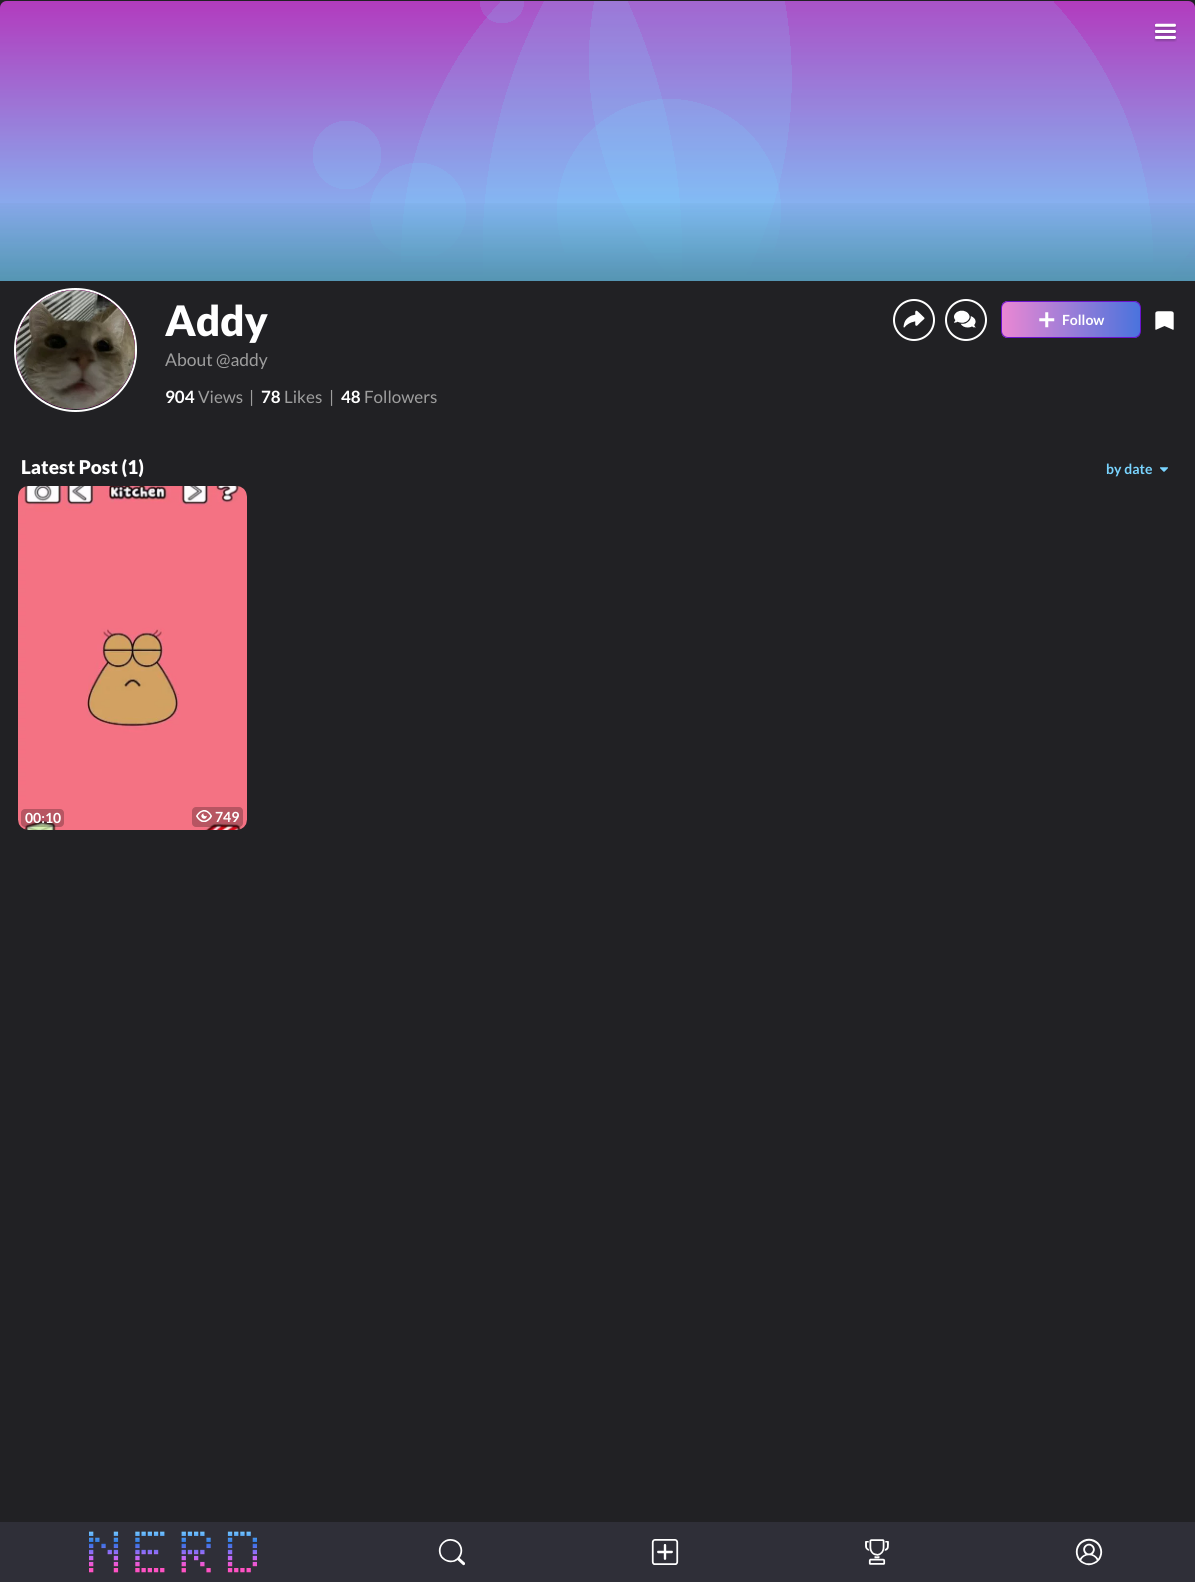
#include <cairo.h>
#include <math.h>
#include <stddef.h>

static cairo_t *c;
static void C(unsigned color){cairo_set_source_rgb(c, (color >> 16) / 255.0, (color >> 8 & 255) / 255.0, (color & 255) / 255.0);}
static void F(const char *family, double size, int italic, int bold){cairo_select_font_face(c, family, italic ? CAIRO_FONT_SLANT_ITALIC : CAIRO_FONT_SLANT_NORMAL,bold ? CAIRO_FONT_WEIGHT_BOLD : CAIRO_FONT_WEIGHT_NORMAL);cairo_set_font_size(c, size);}
static void T(double x, double y, const char *s){cairo_move_to(c, x, y);cairo_show_text(c, s);}
static void R(double x, double y, double w, double h){cairo_rectangle(c, x, y, w, h);cairo_fill(c);}
static void Q(double x, double y, double w, double h, double r){cairo_new_sub_path(c);cairo_arc(c, x + w - r, y + h - r, r, 0, M_PI / 2);cairo_arc(c, x + r, y + h - r, r, M_PI / 2, M_PI);cairo_arc(c, x + r, y + r, r, M_PI, 1.5 * M_PI);cairo_arc(c, x + w - r, y + r, r, 1.5 * M_PI, 2 * M_PI);cairo_close_path(c);}
static void I(const char *path, double x, double y, double w, double h){cairo_surface_t *image = cairo_image_surface_create_from_png(path);cairo_save(c);cairo_set_source_surface(c, image, x, y);cairo_rectangle(c, x, y, w, h);cairo_fill(c);cairo_restore(c);cairo_surface_destroy(image);}
int main(void) {
cairo_surface_t *surface = cairo_image_surface_create(CAIRO_FORMAT_RGB24, 1195, 1582);
c = cairo_create(surface);
cairo_font_options_t *options = cairo_font_options_create();
cairo_font_options_set_hint_metrics(options, CAIRO_HINT_METRICS_OFF);
cairo_font_options_set_hint_style(options, CAIRO_HINT_STYLE_NONE);
cairo_set_font_options(c, options);
cairo_set_miter_limit(c, 4);
cairo_pattern_t *gradient;
C(0x212124);
cairo_paint(c);
gradient = cairo_pattern_create_linear(598,1,598,281);
cairo_pattern_add_color_stop_rgba(gradient,0,0.784,0,0.647,1);
cairo_pattern_add_color_stop_rgba(gradient,1,0.475,0.831,1,1);
cairo_set_source(c,gradient);
cairo_pattern_destroy(gradient);
cairo_new_path(c);
cairo_move_to(c,7,1);
cairo_line_to(c,1188,1);
cairo_curve_to(c,1192,1,1195,4,1195,8);
cairo_line_to(c,1195,281);
cairo_line_to(c,0,281);
cairo_line_to(c,0,8);
cairo_curve_to(c,0,4,3,1,7,1);
cairo_close_path(c);
cairo_fill(c);
gradient = cairo_pattern_create_radial(777,256,0,777,256,817);
cairo_pattern_add_color_stop_rgba(gradient,0,0.475,0.831,1,.15);
cairo_pattern_add_color_stop_rgba(gradient,.46,0.475,0.831,1,.15);
cairo_pattern_add_color_stop_rgba(gradient,.46,0.475,0.831,1,0);
cairo_pattern_add_color_stop_rgba(gradient,.76,0,0,0,0);
cairo_pattern_add_color_stop_rgba(gradient,1,0,0,0,0);
cairo_set_source(c,gradient);
cairo_pattern_destroy(gradient);
R(401,1,753,261);
gradient = cairo_pattern_create_radial(920,60,0,920,60,946);
cairo_pattern_add_color_stop_rgba(gradient,0,0.475,0.831,1,.15);
cairo_pattern_add_color_stop_rgba(gradient,.35,0.475,0.831,1,.15);
cairo_pattern_add_color_stop_rgba(gradient,.35,0.475,0.831,1,0);
cairo_pattern_add_color_stop_rgba(gradient,.55,0,0,0,0);
cairo_pattern_add_color_stop_rgba(gradient,1,0,0,0,0);
cairo_set_source(c,gradient);
cairo_pattern_destroy(gradient);
cairo_new_path(c);
cairo_move_to(c,7,1);
cairo_line_to(c,1188,1);
cairo_curve_to(c,1192,1,1195,4,1195,8);
cairo_line_to(c,1195,281);
cairo_line_to(c,0,281);
cairo_line_to(c,0,8);
cairo_curve_to(c,0,4,3,1,7,1);
cairo_close_path(c);
cairo_fill(c);
gradient = cairo_pattern_create_radial(347,79,0,347,79,872);
cairo_pattern_add_color_stop_rgba(gradient,0,0.475,0.831,1,.15);
cairo_pattern_add_color_stop_rgba(gradient,.51,0.475,0.831,1,.15);
cairo_pattern_add_color_stop_rgba(gradient,.51,0.475,0.831,1,0);
cairo_pattern_add_color_stop_rgba(gradient,.75,0,0,0,0);
cairo_pattern_add_color_stop_rgba(gradient,1,0,0,0,0);
cairo_set_source(c,gradient);
cairo_pattern_destroy(gradient);
cairo_new_path(c);
cairo_move_to(c,7,1);
cairo_line_to(c,1188,1);
cairo_curve_to(c,1192,1,1195,4,1195,8);
cairo_line_to(c,1195,281);
cairo_line_to(c,0,281);
cairo_line_to(c,0,8);
cairo_curve_to(c,0,4,3,1,7,1);
cairo_close_path(c);
cairo_fill(c);
gradient = cairo_pattern_create_radial(502,1,0,502,1,748);
cairo_pattern_add_color_stop_rgba(gradient,0,0.475,0.831,1,.15);
cairo_pattern_add_color_stop_rgba(gradient,.03,0.475,0.831,1,.15);
cairo_pattern_add_color_stop_rgba(gradient,.03,0.475,0.831,1,0);
cairo_pattern_add_color_stop_rgba(gradient,.26,0,0,0,0);
cairo_pattern_add_color_stop_rgba(gradient,1,0,0,0,0);
cairo_set_source(c,gradient);
cairo_pattern_destroy(gradient);
R(480,1,44,22);
gradient = cairo_pattern_create_radial(669,211,0,669,211,701);
cairo_pattern_add_color_stop_rgba(gradient,0,0.475,0.831,1,.15);
cairo_pattern_add_color_stop_rgba(gradient,.16,0.475,0.831,1,.15);
cairo_pattern_add_color_stop_rgba(gradient,.16,0.475,0.831,1,0);
cairo_pattern_add_color_stop_rgba(gradient,.23,0,0,0,0);
cairo_pattern_add_color_stop_rgba(gradient,1,0,0,0,0);
cairo_set_source(c,gradient);
cairo_pattern_destroy(gradient);
R(557,99,225,154);
gradient = cairo_pattern_create_radial(418,211,0,418,211,805);
cairo_pattern_add_color_stop_rgba(gradient,0,0.475,0.831,1,.15);
cairo_pattern_add_color_stop_rgba(gradient,.06,0.475,0.831,1,.15);
cairo_pattern_add_color_stop_rgba(gradient,.06,0.475,0.831,1,0);
cairo_pattern_add_color_stop_rgba(gradient,.98,0,0,0,0);
cairo_pattern_add_color_stop_rgba(gradient,1,0,0,0,0);
cairo_set_source(c,gradient);
cairo_pattern_destroy(gradient);
R(369,163,97,93);
gradient = cairo_pattern_create_radial(72,253,0,72,253,1151);
cairo_pattern_add_color_stop_rgba(gradient,0,0.475,0.831,1,.15);
cairo_pattern_add_color_stop_rgba(gradient,.53,0.475,0.831,1,.15);
cairo_pattern_add_color_stop_rgba(gradient,.53,0.475,0.831,1,0);
cairo_pattern_add_color_stop_rgba(gradient,.64,0,0,0,0);
cairo_pattern_add_color_stop_rgba(gradient,1,0,0,0,0);
cairo_set_source(c,gradient);
cairo_pattern_destroy(gradient);
cairo_new_path(c);
cairo_move_to(c,7,1);
cairo_line_to(c,1188,1);
cairo_curve_to(c,1192,1,1195,4,1195,8);
cairo_line_to(c,1195,281);
cairo_line_to(c,0,281);
cairo_line_to(c,0,8);
cairo_curve_to(c,0,4,3,1,7,1);
cairo_close_path(c);
cairo_fill(c);
gradient = cairo_pattern_create_radial(1016,250,0,1016,250,1046);
cairo_pattern_add_color_stop_rgba(gradient,0,0.475,0.831,1,.15);
cairo_pattern_add_color_stop_rgba(gradient,.51,0.475,0.831,1,.15);
cairo_pattern_add_color_stop_rgba(gradient,.51,0.475,0.831,1,0);
cairo_pattern_add_color_stop_rgba(gradient,.52,0,0,0,0);
cairo_pattern_add_color_stop_rgba(gradient,1,0,0,0,0);
cairo_set_source(c,gradient);
cairo_pattern_destroy(gradient);
cairo_new_path(c);
cairo_move_to(c,7,1);
cairo_line_to(c,1188,1);
cairo_curve_to(c,1192,1,1195,4,1195,8);
cairo_line_to(c,1195,281);
cairo_line_to(c,0,281);
cairo_line_to(c,0,8);
cairo_curve_to(c,0,4,3,1,7,1);
cairo_close_path(c);
cairo_fill(c);
I("1.png",1154,23,23,19);
gradient = cairo_pattern_create_radial(347,155,0,347,155,862);
cairo_pattern_add_color_stop_rgba(gradient,0,0.475,0.831,1,.15);
cairo_pattern_add_color_stop_rgba(gradient,.04,0.475,0.831,1,.15);
cairo_pattern_add_color_stop_rgba(gradient,.04,0.475,0.831,1,0);
cairo_pattern_add_color_stop_rgba(gradient,.44,0,0,0,0);
cairo_pattern_add_color_stop_rgba(gradient,1,0,0,0,0);
cairo_set_source(c,gradient);
cairo_pattern_destroy(gradient);
R(313,121,68,68);
gradient = cairo_pattern_create_linear(598,281,598,1);
cairo_pattern_add_color_stop_rgba(gradient,0,0,0,0,.3);
cairo_pattern_add_color_stop_rgba(gradient,.3,0,0,0,0);
cairo_set_source(c,gradient);
cairo_pattern_destroy(gradient);
R(0,203,1195,78);
Q(15,289,121,122,60.5);
C(0xffffff);
cairo_stroke(c);
C(0xc800a5);
cairo_arc(c,75.5,349.5,59.5,0,2 * M_PI);
cairo_fill(c);
I("2.png",16,290,119,119);
F("Lato Black",42,0,0);
C(0xffffff);
T(165,336,"Addy");
F("Lato",17.5,0,0);
C(0x9e9e9e);
T(165,366,"About @addy");
cairo_new_path(c);
cairo_arc(c,914,320,20,0,2 * M_PI);
C(0xffffff);
cairo_stroke(c);
I("3.png",903,310,22,18);
cairo_arc(c,966,320,20,0,2 * M_PI);
cairo_stroke(c);
I("4.png",954,310,22,18);
cairo_save(c);
Q(1001,301,140,37,7);
cairo_clip(c);
gradient = cairo_pattern_create_linear(1002,320,1140,320);
cairo_pattern_add_color_stop_rgba(gradient,0,0.918,0.529,0.827,1);
cairo_pattern_add_color_stop_rgba(gradient,1,0.29,0.451,0.867,1);
cairo_set_source(c,gradient);
cairo_pattern_destroy(gradient);
R(1002,301,138,37);
cairo_restore(c);
Q(1001.5,301.5,139,36,6.5);
C(0x6b12cc);
cairo_set_line_width(c,1);
cairo_stroke(c);
I("5.png",1039,312,16,16);
F("Lato",14,0,1);
C(0xffffff);
T(1062,325,"Follow");
I("6.png",1155,311,19,19);
F("Lato",17,0,1);
T(165,403,"904");
F("Lato",17,0,0);
C(0x9e9e9e);
T(198,403,"Views");
T(249,403,"|");
F("Lato",17,0,1);
C(0xffffff);
T(261,403,"78");
F("Lato",17,0,0);
C(0x9e9e9e);
T(284,403,"Likes");
T(329,403,"|");
F("Lato",17,0,1);
C(0xffffff);
T(341,403,"48");
F("Lato",17,0,0);
C(0x9e9e9e);
T(364,403,"Followers");
F("Lato Black",19,0,0);
C(0xffffff);
T(21,474,"Latest Post (1)");
F("Lato",14,0,1);
C(0x79d4ff);
T(1106,474,"by date");
I("7.png",1160,467,8,5);
C(0x3b3b3b);
Q(18,486,229,344,11);
cairo_fill(c);
I("8.png",18,486,229,344);
cairo_set_source_rgba(c,0,0,0,0.25);
Q(21,809,43,18,4);
cairo_fill(c);
C(0xffffff);
T(25,823,"00:10");
cairo_set_source_rgba(c,0,0,0,0.25);
Q(192,807,51,20,4);
cairo_fill(c);
I("9.png",196,810,16,12);
C(0xffffff);
T(215,822,"749");
C(0x2f2f38);
R(0,1522,1195,60);
I("10.png",89,1531,168,42);
I("11.png",438,1539,27,27);
I("12.png",651,1539,28,26);
I("13.png",865,1539,24,26);
I("14.png",1075,1538,28,28);
cairo_surface_write_to_png(surface, "o.png");
cairo_font_options_destroy(options);
cairo_destroy(c);
cairo_surface_destroy(surface);
return 0;
}
